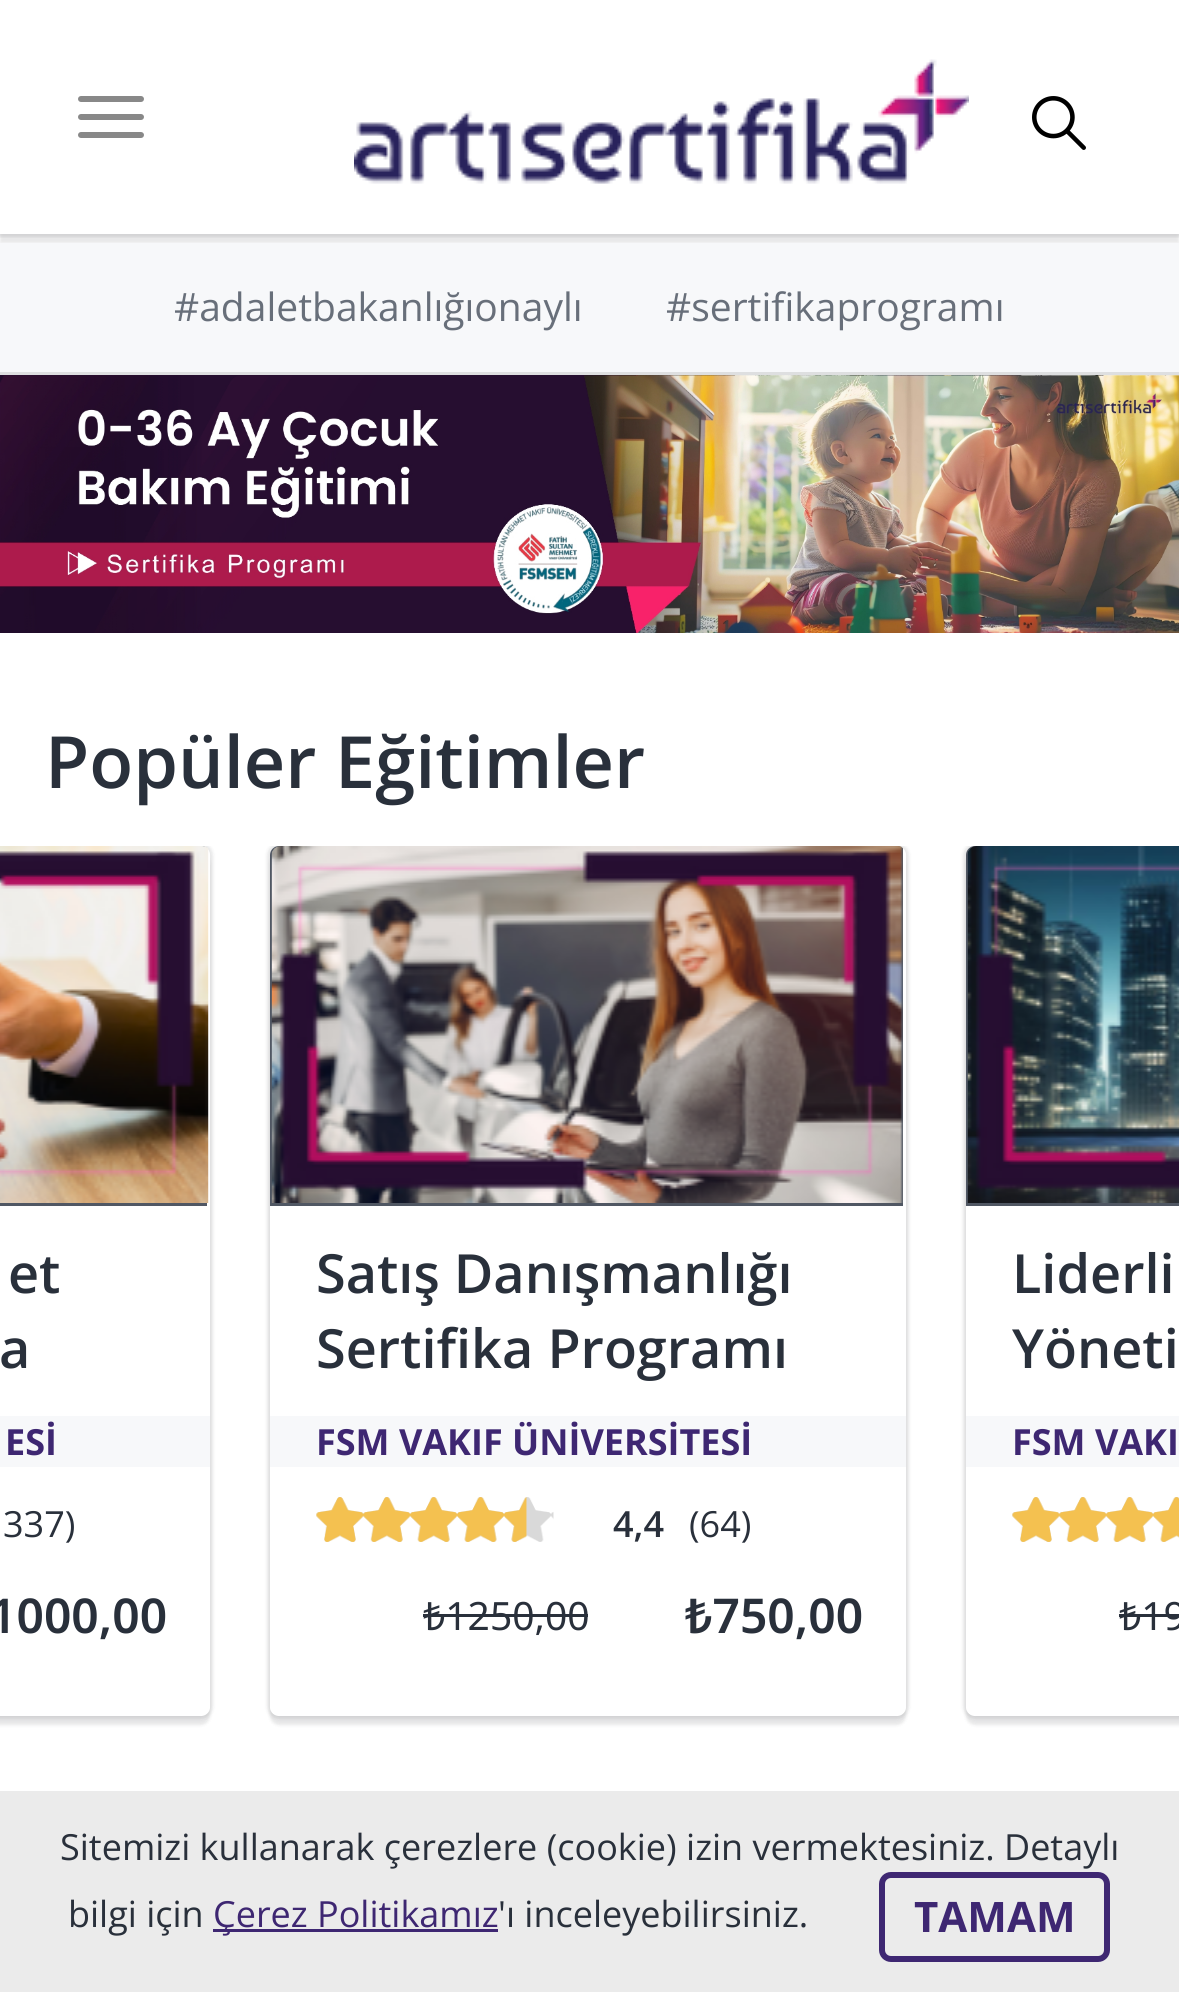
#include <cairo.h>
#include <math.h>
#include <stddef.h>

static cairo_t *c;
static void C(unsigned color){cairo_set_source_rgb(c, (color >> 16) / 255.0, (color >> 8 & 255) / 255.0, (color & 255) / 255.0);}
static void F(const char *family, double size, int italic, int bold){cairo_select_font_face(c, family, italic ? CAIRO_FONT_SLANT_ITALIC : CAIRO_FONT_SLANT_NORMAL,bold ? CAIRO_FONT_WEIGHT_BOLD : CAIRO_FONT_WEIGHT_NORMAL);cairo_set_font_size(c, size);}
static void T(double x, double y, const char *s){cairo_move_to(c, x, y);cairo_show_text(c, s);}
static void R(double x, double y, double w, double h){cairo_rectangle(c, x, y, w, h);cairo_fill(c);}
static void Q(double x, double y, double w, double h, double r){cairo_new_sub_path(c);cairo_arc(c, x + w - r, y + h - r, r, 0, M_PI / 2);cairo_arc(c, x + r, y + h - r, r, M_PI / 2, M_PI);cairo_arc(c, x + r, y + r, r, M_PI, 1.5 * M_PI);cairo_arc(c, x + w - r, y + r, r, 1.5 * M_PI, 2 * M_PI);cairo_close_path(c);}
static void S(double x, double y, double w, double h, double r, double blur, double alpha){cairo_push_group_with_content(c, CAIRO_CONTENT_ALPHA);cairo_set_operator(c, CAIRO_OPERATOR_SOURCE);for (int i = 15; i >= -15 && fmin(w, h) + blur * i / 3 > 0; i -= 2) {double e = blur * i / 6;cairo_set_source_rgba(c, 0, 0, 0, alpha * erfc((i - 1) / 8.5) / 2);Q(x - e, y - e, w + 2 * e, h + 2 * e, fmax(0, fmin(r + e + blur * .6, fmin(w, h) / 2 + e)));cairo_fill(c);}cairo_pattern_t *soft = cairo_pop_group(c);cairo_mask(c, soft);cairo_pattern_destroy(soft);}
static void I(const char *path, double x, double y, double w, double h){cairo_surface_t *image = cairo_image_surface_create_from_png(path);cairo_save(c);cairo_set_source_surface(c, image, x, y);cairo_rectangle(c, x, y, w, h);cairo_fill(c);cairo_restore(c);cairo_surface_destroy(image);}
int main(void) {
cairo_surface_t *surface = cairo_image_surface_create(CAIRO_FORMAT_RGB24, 1179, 1992);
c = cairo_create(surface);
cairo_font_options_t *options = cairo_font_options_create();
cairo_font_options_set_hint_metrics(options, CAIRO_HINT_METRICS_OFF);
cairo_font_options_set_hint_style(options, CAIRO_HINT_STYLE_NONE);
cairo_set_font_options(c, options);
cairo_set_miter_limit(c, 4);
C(0xffffff);
cairo_paint(c);
cairo_save(c);
cairo_rectangle(c,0,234,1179,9);
cairo_clip(c);
C(0x14171c);
S(0,9,1179,234,0,1.5,.1);
cairo_restore(c);
cairo_save(c);
cairo_rectangle(c,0,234,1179,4);
cairo_clip(c);
C(0x14171c);
S(-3,-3,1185,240,0,1.5,.1);
cairo_restore(c);
C(0x888888);
Q(78,96,66,6,3);
cairo_fill(c);
Q(78,114,66,6,3);
cairo_fill(c);
Q(78,132,66,6,3);
cairo_fill(c);
I("1.png",354,59,615,125);
I("2.png",1032,96,54,54);
C(0xf7f8fa);
R(0,243,1179,129);
C(0xdedfe0);
R(0,372,1179,3);
F("Open Sans",39,0,0);
C(0x686f7a);
T(174,321,"#adaletbakanlığıonaylı");
T(666,321,"#sertifikaprogramı");
I("3.png",0,375,1179,258);
F("Open Sans SemiBold",72,0,0);
C(0x29303b);
T(45,788,"Popüler Eğitimler");
cairo_save(c);
cairo_set_fill_rule(c,CAIRO_FILL_RULE_EVEN_ODD);
cairo_new_path(c);
cairo_move_to(c,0,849);
cairo_line_to(c,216,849);
cairo_line_to(c,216,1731);
cairo_line_to(c,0,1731);
cairo_close_path(c);
cairo_move_to(c,-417,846);
cairo_line_to(c,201,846);
cairo_curve_to(c,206,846,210,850,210,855);
cairo_line_to(c,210,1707);
cairo_curve_to(c,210,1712,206,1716,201,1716);
cairo_line_to(c,-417,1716);
cairo_curve_to(c,-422,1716,-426,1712,-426,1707);
cairo_line_to(c,-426,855);
cairo_curve_to(c,-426,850,-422,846,-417,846);
cairo_close_path(c);
cairo_clip(c);
C(0x14171c);
S(-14,855,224,870,9,1.5,.1);
cairo_restore(c);
cairo_save(c);
cairo_rectangle(c,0,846,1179,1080);
cairo_clip(c);
cairo_set_fill_rule(c,CAIRO_FILL_RULE_EVEN_ODD);
cairo_new_path(c);
cairo_move_to(c,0,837);
cairo_line_to(c,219,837);
cairo_line_to(c,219,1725);
cairo_line_to(c,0,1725);
cairo_close_path(c);
cairo_move_to(c,-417,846);
cairo_line_to(c,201,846);
cairo_curve_to(c,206,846,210,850,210,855);
cairo_line_to(c,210,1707);
cairo_curve_to(c,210,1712,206,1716,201,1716);
cairo_line_to(c,-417,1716);
cairo_curve_to(c,-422,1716,-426,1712,-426,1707);
cairo_line_to(c,-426,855);
cairo_curve_to(c,-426,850,-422,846,-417,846);
cairo_close_path(c);
cairo_clip(c);
C(0x14171c);
S(-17,843,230,876,12,1.5,.1);
cairo_restore(c);
cairo_save(c);
Q(-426,846,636,870,9);
cairo_clip(c);
C(0x505763);
R(0,846,207,360);
cairo_restore(c);
I("4.png",0,846,209,357);
F("Open Sans SemiBold",54,0,0);
T(8,1293,"et");
T(-1,1368,"a");
C(0xf7f8fa);
R(0,1416,210,51);
F("Open Sans",36,0,1);
C(0x3e2772);
T(5,1455,"ESİ");
F("Open Sans",36,0,0);
C(0x29303b);
T(3,1537,"337)");
F("Noto Sans SemiBold",48,0,0);
T(-11,1633,"1000,00");
cairo_save(c);
cairo_set_fill_rule(c,CAIRO_FILL_RULE_EVEN_ODD);
cairo_new_path(c);
cairo_move_to(c,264,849);
cairo_line_to(c,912,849);
cairo_line_to(c,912,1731);
cairo_line_to(c,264,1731);
cairo_close_path(c);
cairo_move_to(c,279,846);
cairo_line_to(c,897,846);
cairo_curve_to(c,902,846,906,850,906,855);
cairo_line_to(c,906,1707);
cairo_curve_to(c,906,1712,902,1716,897,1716);
cairo_line_to(c,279,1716);
cairo_curve_to(c,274,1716,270,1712,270,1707);
cairo_line_to(c,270,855);
cairo_curve_to(c,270,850,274,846,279,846);
cairo_close_path(c);
cairo_clip(c);
C(0x14171c);
S(270,855,636,870,9,1.5,.1);
cairo_restore(c);
cairo_save(c);
cairo_rectangle(c,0,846,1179,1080);
cairo_clip(c);
cairo_set_fill_rule(c,CAIRO_FILL_RULE_EVEN_ODD);
cairo_new_path(c);
cairo_move_to(c,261,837);
cairo_line_to(c,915,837);
cairo_line_to(c,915,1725);
cairo_line_to(c,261,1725);
cairo_close_path(c);
cairo_move_to(c,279,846);
cairo_line_to(c,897,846);
cairo_curve_to(c,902,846,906,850,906,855);
cairo_line_to(c,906,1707);
cairo_curve_to(c,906,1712,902,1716,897,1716);
cairo_line_to(c,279,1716);
cairo_curve_to(c,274,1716,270,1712,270,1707);
cairo_line_to(c,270,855);
cairo_curve_to(c,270,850,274,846,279,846);
cairo_close_path(c);
cairo_clip(c);
C(0x14171c);
S(267,843,642,876,12,1.5,.1);
cairo_restore(c);
cairo_save(c);
Q(270,846,636,870,9);
cairo_clip(c);
C(0x505763);
cairo_new_path(c);
cairo_move_to(c,279,846);
cairo_line_to(c,903,846);
cairo_line_to(c,903,1206);
cairo_line_to(c,270,1206);
cairo_line_to(c,270,855);
cairo_curve_to(c,270,850,274,846,279,846);
cairo_close_path(c);
cairo_fill(c);
cairo_restore(c);
I("5.png",271,846,632,357);
F("Open Sans SemiBold",54,0,0);
T(316,1293,"Satış Danışmanlığı");
T(316,1368,"Sertifika Programı");
C(0xf7f8fa);
R(270,1416,636,51);
F("Open Sans",36,0,1);
C(0x3e2772);
T(316,1455,"FSM VAKIF ÜNİVERSİTESİ");
I("6.png",316,1497,238,45);
I("7.png",316,1497,211,45);
F("Open Sans SemiBold",36,0,0);
C(0x29303b);
T(613,1537,"4,4");
F("Open Sans",36,0,0);
T(689,1537,"(64)");
F("Noto Sans",39,0,0);
T(423,1630,"₺1250,00");
R(423,1614,165,3);
F("Noto Sans SemiBold",48,0,0);
T(685,1633,"₺750,00");
cairo_save(c);
cairo_set_fill_rule(c,CAIRO_FILL_RULE_EVEN_ODD);
cairo_new_path(c);
cairo_move_to(c,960,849);
cairo_line_to(c,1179,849);
cairo_line_to(c,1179,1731);
cairo_line_to(c,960,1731);
cairo_close_path(c);
cairo_move_to(c,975,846);
cairo_line_to(c,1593,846);
cairo_curve_to(c,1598,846,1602,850,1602,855);
cairo_line_to(c,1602,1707);
cairo_curve_to(c,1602,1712,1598,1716,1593,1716);
cairo_line_to(c,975,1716);
cairo_curve_to(c,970,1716,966,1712,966,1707);
cairo_line_to(c,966,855);
cairo_curve_to(c,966,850,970,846,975,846);
cairo_close_path(c);
cairo_clip(c);
C(0x14171c);
S(966,855,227,870,9,1.5,.1);
cairo_restore(c);
cairo_save(c);
cairo_rectangle(c,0,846,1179,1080);
cairo_clip(c);
cairo_set_fill_rule(c,CAIRO_FILL_RULE_EVEN_ODD);
cairo_new_path(c);
cairo_move_to(c,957,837);
cairo_line_to(c,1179,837);
cairo_line_to(c,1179,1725);
cairo_line_to(c,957,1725);
cairo_close_path(c);
cairo_move_to(c,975,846);
cairo_line_to(c,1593,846);
cairo_curve_to(c,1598,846,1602,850,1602,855);
cairo_line_to(c,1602,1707);
cairo_curve_to(c,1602,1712,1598,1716,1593,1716);
cairo_line_to(c,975,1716);
cairo_curve_to(c,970,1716,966,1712,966,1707);
cairo_line_to(c,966,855);
cairo_curve_to(c,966,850,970,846,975,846);
cairo_close_path(c);
cairo_clip(c);
C(0x14171c);
S(963,843,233,876,12,1.5,.1);
cairo_restore(c);
C(0x505763);
cairo_new_path(c);
cairo_move_to(c,975,846);
cairo_line_to(c,1179,846);
cairo_line_to(c,1179,1206);
cairo_line_to(c,966,1206);
cairo_line_to(c,966,855);
cairo_curve_to(c,966,850,970,846,975,846);
cairo_close_path(c);
cairo_fill(c);
I("8.png",967,846,212,357);
F("Open Sans SemiBold",54,0,0);
C(0x29303b);
T(1012,1293,"Liderli");
T(1012,1368,"Yöneti");
C(0xf7f8fa);
R(966,1416,213,51);
F("Open Sans",36,0,1);
C(0x3e2772);
T(1012,1455,"FSM VAKI");
I("9.png",1012,1497,167,45);
I("10.png",1012,1497,167,45);
F("Noto Sans",39,0,0);
C(0x29303b);
T(1119,1630,"₺19");
R(1119,1614,60,3);
C(0xebebeb);
R(0,1791,1179,201);
F("Open Sans",36,0,0);
C(0x29303b);
T(60,1860,"Sitemizi kullanarak çerezlere (cookie) izin vermektesiniz. Detaylı");
T(68,1927,"bilgi için");
C(0x3e2772);
R(213,1929,285,3);
T(213,1927,"Çerez Politikamız");
C(0x29303b);
T(498,1927,"'ı inceleyebilirsiniz.");
Q(882,1875,225,84,9);
C(0x3e2772);
cairo_set_line_width(c,6);
cairo_stroke(c);
F("Open Sans",42,0,1);
T(914,1932,"TAMAM");
cairo_surface_write_to_png(surface, "o.png");
cairo_font_options_destroy(options);
cairo_destroy(c);
cairo_surface_destroy(surface);
return 0;
}
